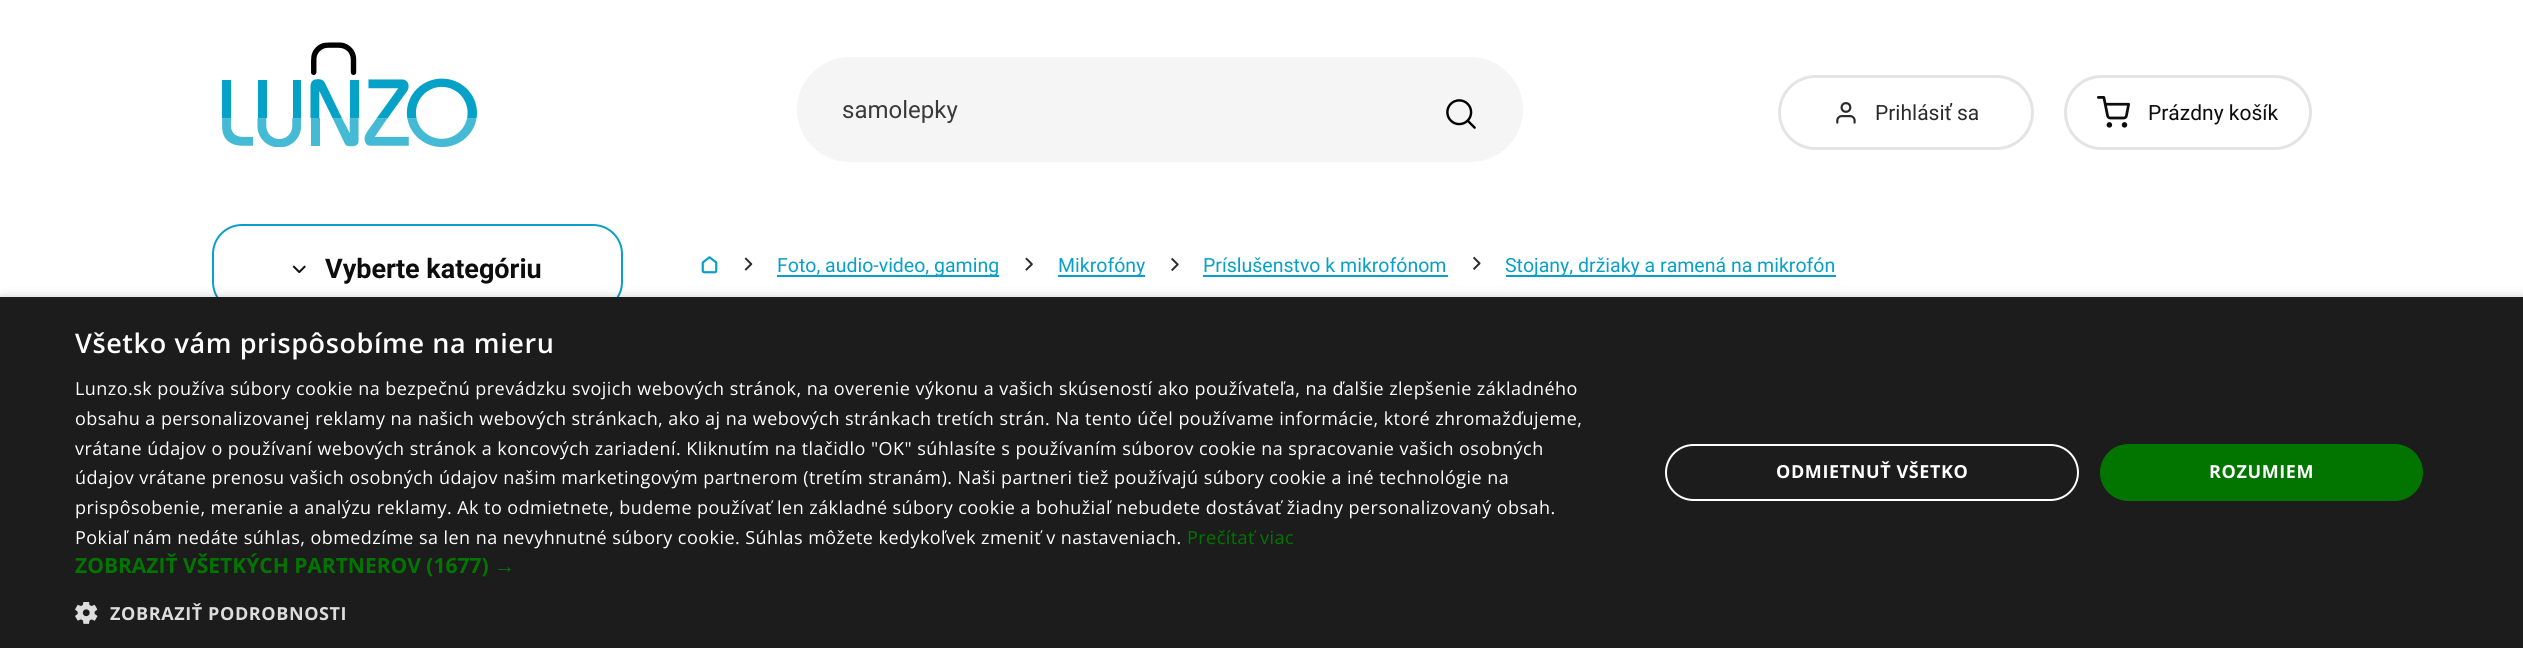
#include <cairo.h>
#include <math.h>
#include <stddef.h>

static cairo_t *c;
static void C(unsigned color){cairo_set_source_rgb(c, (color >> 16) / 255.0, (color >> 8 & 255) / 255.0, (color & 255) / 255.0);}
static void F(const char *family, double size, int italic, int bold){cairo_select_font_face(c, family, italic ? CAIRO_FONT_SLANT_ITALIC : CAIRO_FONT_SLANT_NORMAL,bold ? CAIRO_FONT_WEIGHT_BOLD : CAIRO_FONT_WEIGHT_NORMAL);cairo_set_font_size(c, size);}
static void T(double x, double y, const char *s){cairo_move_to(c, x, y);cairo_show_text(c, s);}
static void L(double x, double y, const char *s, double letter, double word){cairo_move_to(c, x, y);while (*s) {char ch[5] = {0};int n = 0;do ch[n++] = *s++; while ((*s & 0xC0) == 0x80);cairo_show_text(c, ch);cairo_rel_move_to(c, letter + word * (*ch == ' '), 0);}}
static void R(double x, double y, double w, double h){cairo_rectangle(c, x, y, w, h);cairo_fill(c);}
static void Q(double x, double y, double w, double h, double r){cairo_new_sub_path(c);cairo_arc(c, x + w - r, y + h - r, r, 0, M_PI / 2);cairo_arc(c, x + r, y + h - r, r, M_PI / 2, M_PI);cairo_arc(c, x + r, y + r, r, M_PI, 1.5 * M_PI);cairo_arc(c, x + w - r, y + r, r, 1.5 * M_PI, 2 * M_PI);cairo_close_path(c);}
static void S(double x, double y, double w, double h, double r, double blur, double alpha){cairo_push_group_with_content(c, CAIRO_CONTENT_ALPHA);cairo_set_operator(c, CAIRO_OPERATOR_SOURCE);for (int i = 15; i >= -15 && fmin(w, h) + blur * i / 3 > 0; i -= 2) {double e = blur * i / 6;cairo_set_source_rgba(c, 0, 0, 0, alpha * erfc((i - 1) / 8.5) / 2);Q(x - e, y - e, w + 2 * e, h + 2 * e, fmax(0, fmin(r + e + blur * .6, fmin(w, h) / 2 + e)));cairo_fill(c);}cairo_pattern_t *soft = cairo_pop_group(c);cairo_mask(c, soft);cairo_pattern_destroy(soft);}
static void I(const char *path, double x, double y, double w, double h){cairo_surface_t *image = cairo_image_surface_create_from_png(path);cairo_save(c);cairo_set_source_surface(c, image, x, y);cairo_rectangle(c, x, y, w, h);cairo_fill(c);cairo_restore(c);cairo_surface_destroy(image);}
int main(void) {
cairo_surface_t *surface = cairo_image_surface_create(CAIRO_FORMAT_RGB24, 2523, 648);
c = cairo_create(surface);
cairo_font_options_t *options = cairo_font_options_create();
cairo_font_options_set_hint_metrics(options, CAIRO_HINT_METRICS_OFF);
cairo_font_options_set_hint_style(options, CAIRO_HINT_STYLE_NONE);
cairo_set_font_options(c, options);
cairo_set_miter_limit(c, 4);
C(0xffffff);
cairo_paint(c);
I("1.png",222,42,255,105);
C(0xf5f5f5);
Q(797,57,726,105,52.5);
cairo_fill(c);
F("Roboto",24,0,0);
C(0x3a3a3a);
T(842,118,"samolepky");
I("2.png",1446,99,30,30);
Q(1779.5,76.5,253,72,36);
C(0xe4e4e4);
cairo_set_line_width(c,3);
cairo_stroke(c);
I("3.png",1836,102,20,22);
F("Roboto",21,0,0);
C(0x2b2b2b);
T(1875,120,"Prihlásiť sa");
Q(2065.5,76.5,245,72,36);
C(0xe4e4e4);
cairo_stroke(c);
I("4.png",2097,96,33,32);
C(0x0d0d0d);
T(2148,120,"Prázdny košík");
Q(213,225,409,86,29);
C(0x08a0c8);
cairo_set_line_width(c,2);
cairo_stroke(c);
I("5.png",292,265,14,9);
F("Roboto",27,0,1);
C(0x0d0d0d);
T(325,278,"Vyberte kategóriu");
I("6.png",701,256,17,18);
I("7.png",744,257,9,14);
C(0x08a0c8);
R(777,275,222,2);
F("Roboto",19.5,0,0);
T(777,272,"Foto, audio-video, gaming");
I("8.png",1025,257,8,14);
R(1058,275,87,2);
T(1058,272,"Mikrofóny");
I("9.png",1171,257,8,14);
T(1203,272,"Príslušenstvo k mikrofónom");
R(1203,275,245,2);
I("10.png",1473,256,8,14);
R(1506,275,330,2);
T(1505,272,"Stojany, držiaky a ramená na mikrofón");
C(0x000000);
S(2,300,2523,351,0,6,.35);
C(0x1c1c1c);
R(0,297,2523,351);
F("Open Sans SemiBold",27,0,0);
C(0xffffff);
L(75,353,"Všetko vám prispôsobíme na mieru",.6,0);
F("Open Sans",18,0,0);
L(75,395,"Lunzo.sk používa súbory cookie na bezpečnú prevádzku svojich webových stránok, na overenie výkonu a vašich skúseností ako používateľa, na ďalšie zlepšenie základného",.45,0);
L(75,425,"obsahu a personalizovanej reklamy na našich webových stránkach, ako aj na webových stránkach tretích strán. Na tento účel používame informácie, ktoré zhromažďujeme,",.45,0);
L(75,455,"vrátane údajov o používaní webových stránok a koncových zariadení. Kliknutím na tlačidlo \"OK\" súhlasíte s používaním súborov cookie na spracovanie vašich osobných",.45,0);
L(75,484,"údajov vrátane prenosu vašich osobných údajov našim marketingovým partnerom (tretím stranám). Naši partneri tiež používajú súbory cookie a iné technológie na",.45,0);
L(75,514,"prispôsobenie, meranie a analýzu reklamy. Ak to odmietnete, budeme používať len základné súbory cookie a bohužiaľ nebudete dostávať žiadny personalizovaný obsah.",.45,0);
L(75,544,"Pokiaľ nám nedáte súhlas, obmedzíme sa len na nevyhnutné súbory cookie. Súhlas môžete kedykoľvek zmeniť v nastaveniach.",.45,0);
C(0x027500);
L(1187,544,"Prečítať viac",.45,0);
F("Open Sans",21,0,1);
T(75,573,"ZOBRAZIŤ VŠETKÝCH PARTNEROV (1677)");
F("Liberation Sans",21,0,1);
T(494,573,"→");
I("11.png",75,602,23,22);
F("Open Sans",18,0,1);
C(0xdddddd);
L(110,620,"ZOBRAZIŤ PODROBNOSTI",.6,0);
Q(1666,445,412,55,27.5);
C(0xffffff);
cairo_stroke(c);
L(1776,478,"ODMIETNUŤ VŠETKO",.6,0);
C(0x027500);
Q(2100,444,323,57,28.5);
cairo_fill(c);
C(0xffffff);
L(2209,478,"ROZUMIEM",.6,0);
cairo_surface_write_to_png(surface, "o.png");
cairo_font_options_destroy(options);
cairo_destroy(c);
cairo_surface_destroy(surface);
return 0;
}
